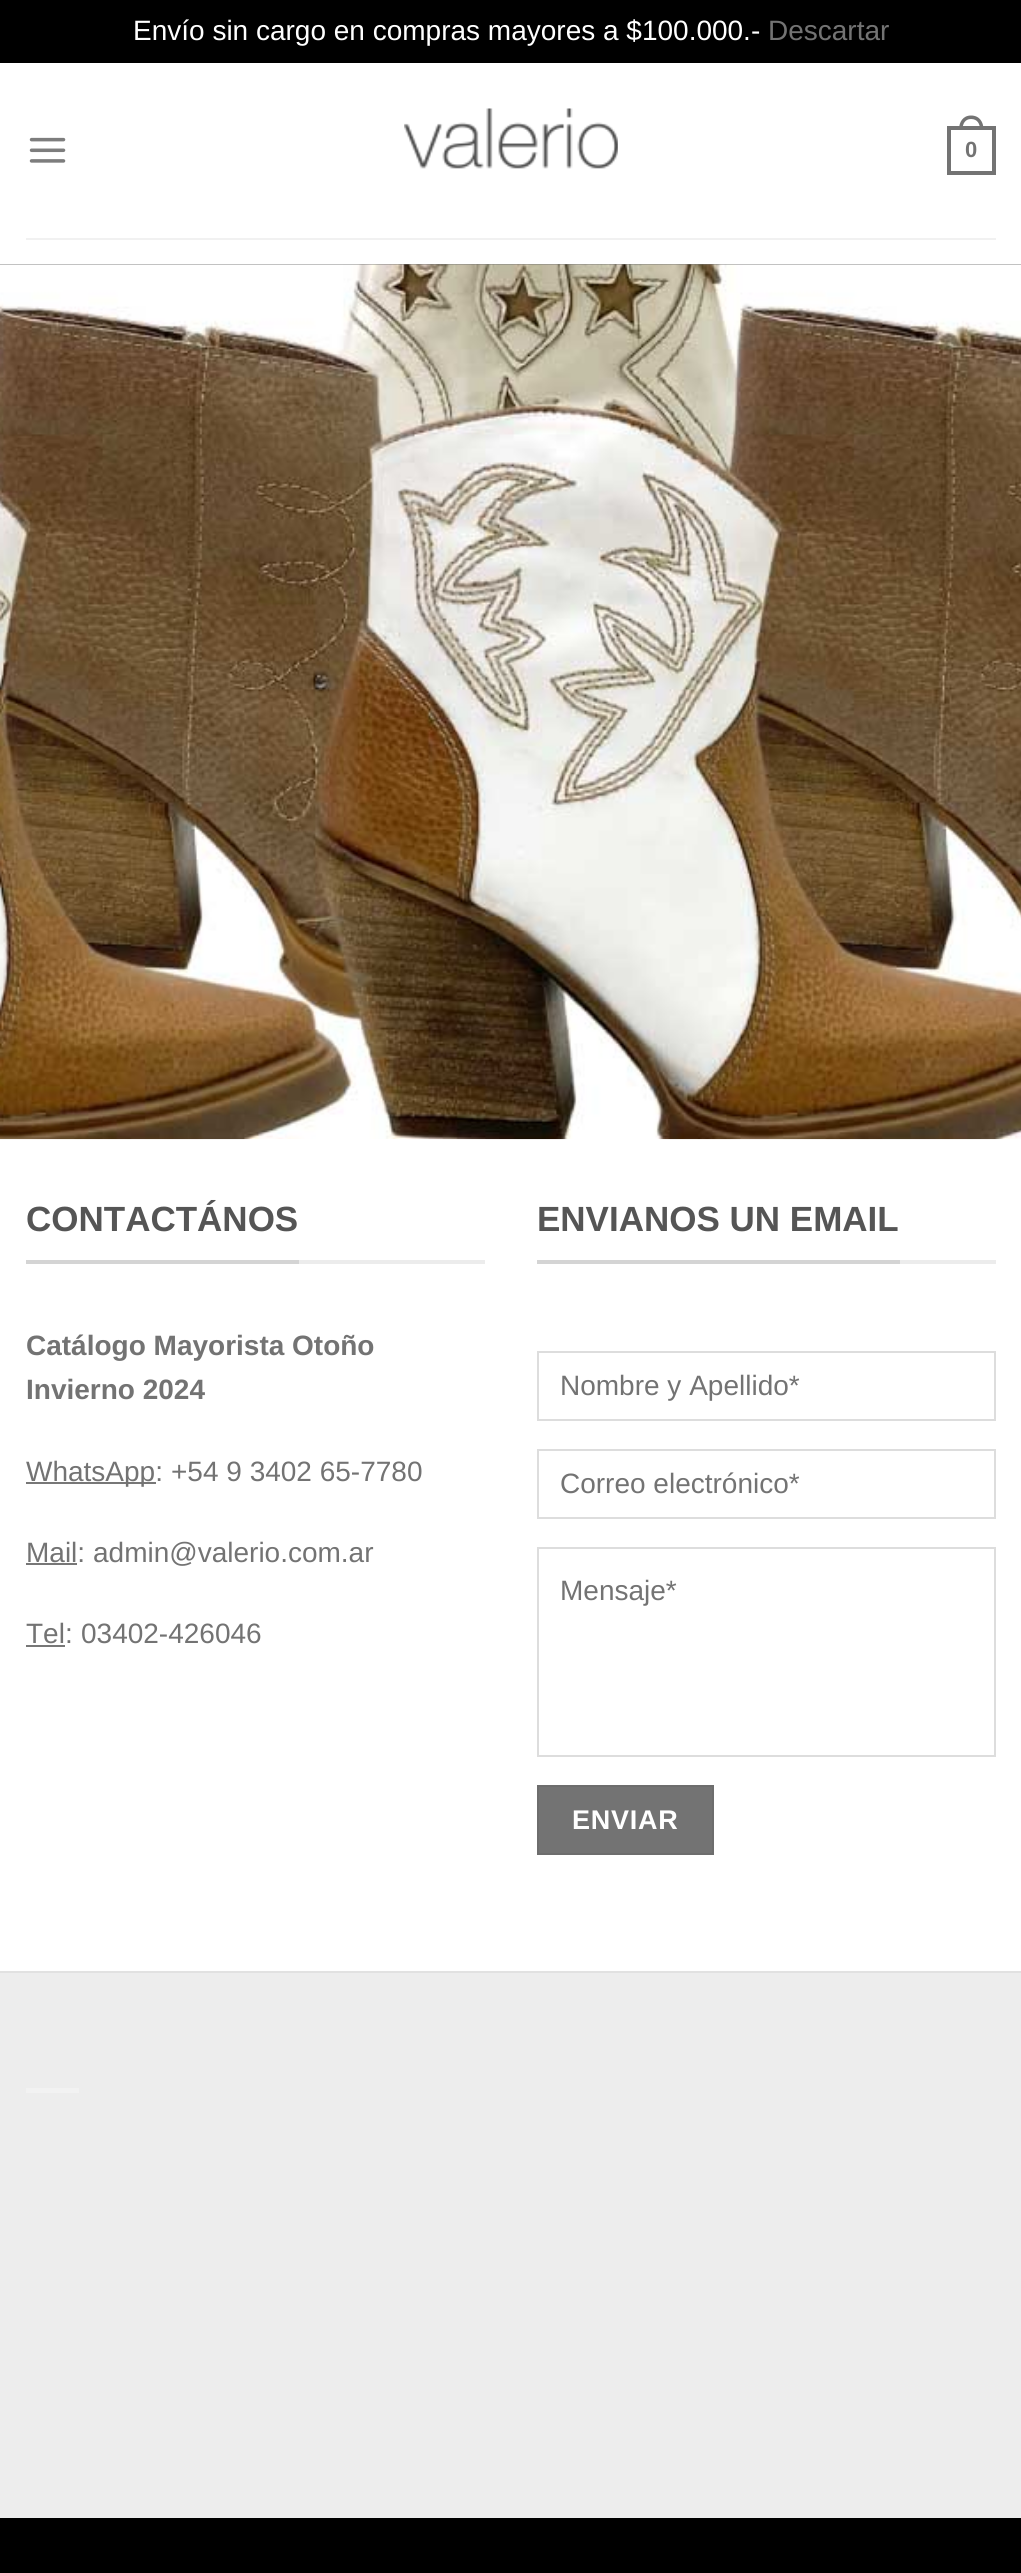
#include <cairo.h>
#include <math.h>
#include <stddef.h>

static cairo_t *c;
static void C(unsigned color){cairo_set_source_rgb(c, (color >> 16) / 255.0, (color >> 8 & 255) / 255.0, (color & 255) / 255.0);}
static void F(const char *family, double size, int italic, int bold){cairo_select_font_face(c, family, italic ? CAIRO_FONT_SLANT_ITALIC : CAIRO_FONT_SLANT_NORMAL,bold ? CAIRO_FONT_WEIGHT_BOLD : CAIRO_FONT_WEIGHT_NORMAL);cairo_set_font_size(c, size);}
static void T(double x, double y, const char *s){cairo_move_to(c, x, y);cairo_show_text(c, s);}
static void L(double x, double y, const char *s, double letter, double word){cairo_move_to(c, x, y);while (*s) {char ch[5] = {0};int n = 0;do ch[n++] = *s++; while ((*s & 0xC0) == 0x80);cairo_show_text(c, ch);cairo_rel_move_to(c, letter + word * (*ch == ' '), 0);}}
static void R(double x, double y, double w, double h){cairo_rectangle(c, x, y, w, h);cairo_fill(c);}
static void I(const char *path, double x, double y, double w, double h){cairo_surface_t *image = cairo_image_surface_create_from_png(path);cairo_save(c);cairo_set_source_surface(c, image, x, y);cairo_rectangle(c, x, y, w, h);cairo_fill(c);cairo_restore(c);cairo_surface_destroy(image);}
int main(void) {
cairo_surface_t *surface = cairo_image_surface_create(CAIRO_FORMAT_RGB24, 1021, 2573);
c = cairo_create(surface);
cairo_font_options_t *options = cairo_font_options_create();
cairo_font_options_set_hint_metrics(options, CAIRO_HINT_METRICS_OFF);
cairo_font_options_set_hint_style(options, CAIRO_HINT_STYLE_NONE);
cairo_set_font_options(c, options);
cairo_set_miter_limit(c, 4);
C(0x000000);
cairo_paint(c);
F("Liberation Sans",28,0,0);
C(0xffffff);
T(133,40,"Envío sin cargo en compras mayores a $100.000.-");
C(0x737373);
T(768,40,"Descartar");
C(0xffffff);
R(0,63,1021,1908);
I("1.png",29,137,37,26);
I("2.png",404,108,214,61);
cairo_rectangle(c,949,128,45,45);
C(0x737373);
cairo_set_line_width(c,4);
cairo_stroke(c);
cairo_set_fill_rule(c,CAIRO_FILL_RULE_EVEN_ODD);
cairo_new_path(c);
cairo_move_to(c,971,115.5);
cairo_curve_to(c,979.5,115.5,983.5,122,983.5,129.5);
cairo_line_to(c,959,129.5);
cairo_curve_to(c,959,122,963,115.5,971,115.5);
cairo_close_path(c);
cairo_move_to(c,971,119);
cairo_curve_to(c,977.5,119,980,124,980,129.5);
cairo_line_to(c,962.5,129.5);
cairo_curve_to(c,962.5,124,965,119,971,119);
cairo_close_path(c);
cairo_fill(c);
F("Liberation Sans",22,0,1);
T(965,157,"0");
C(0xf1f1f1);
R(26,238,970,2);
C(0x737373);
R(0,264,1021,1);
I("3.png",0,264,1021,876);
C(0xececec);
R(299,1260,186,4);
C(0xd4d4d4);
R(26,1260,273,4);
F("Liberation Sans",35,0,1);
C(0x555555);
T(26,1231,"CONTACTÁNOS");
F("Liberation Sans",28,0,1);
C(0x737373);
T(26,1355,"Catálogo Mayorista Otoño");
T(26,1399,"Invierno 2024");
C(0x777777);
R(26,1482,130,2);
F("Liberation Sans",28,0,0);
C(0x737373);
T(26,1481,"WhatsApp:");
T(171,1481,"+54 9 3402 65-7780");
T(26,1562,"Mail:");
C(0x777777);
R(26,1563,51,2);
C(0x737373);
T(93,1562,"admin@valerio.com.ar");
T(26,1643,"Tel:");
C(0x777777);
R(26,1645,39,2);
C(0x737373);
T(81,1643,"03402-426046");
C(0xececec);
R(900,1260,96,4);
C(0xd4d4d4);
R(537,1260,363,4);
F("Liberation Sans",35,0,1);
C(0x555555);
T(537,1231,"ENVIANOS UN EMAIL");
cairo_rectangle(c,538,1352,457,68);
C(0xdddddd);
cairo_set_line_width(c,2);
cairo_stroke(c);
F("Liberation Sans",28,0,0);
C(0x737373);
T(560,1395,"Nombre y Apellido*");
cairo_rectangle(c,538,1450,457,68);
C(0xdddddd);
cairo_stroke(c);
C(0x737373);
T(560,1493,"Correo electrónico*");
cairo_rectangle(c,538,1548,457,208);
C(0xdddddd);
cairo_stroke(c);
C(0x737373);
T(560,1600,"Mensaje*");
cairo_rectangle(c,538,1786,175,68);
cairo_fill_preserve(c);
C(0x6d6d6d);
cairo_stroke(c);
F("Liberation Sans",27,0,1);
C(0xffffff);
L(572,1829,"ENVIAR",.75,0);
C(0xededed);
R(0,1973,1021,545);
C(0xe1e1e1);
R(0,1971,1021,2);
C(0xf2f2f2);
R(26,2088,53,5);
cairo_surface_write_to_png(surface, "o.png");
cairo_font_options_destroy(options);
cairo_destroy(c);
cairo_surface_destroy(surface);
return 0;
}
